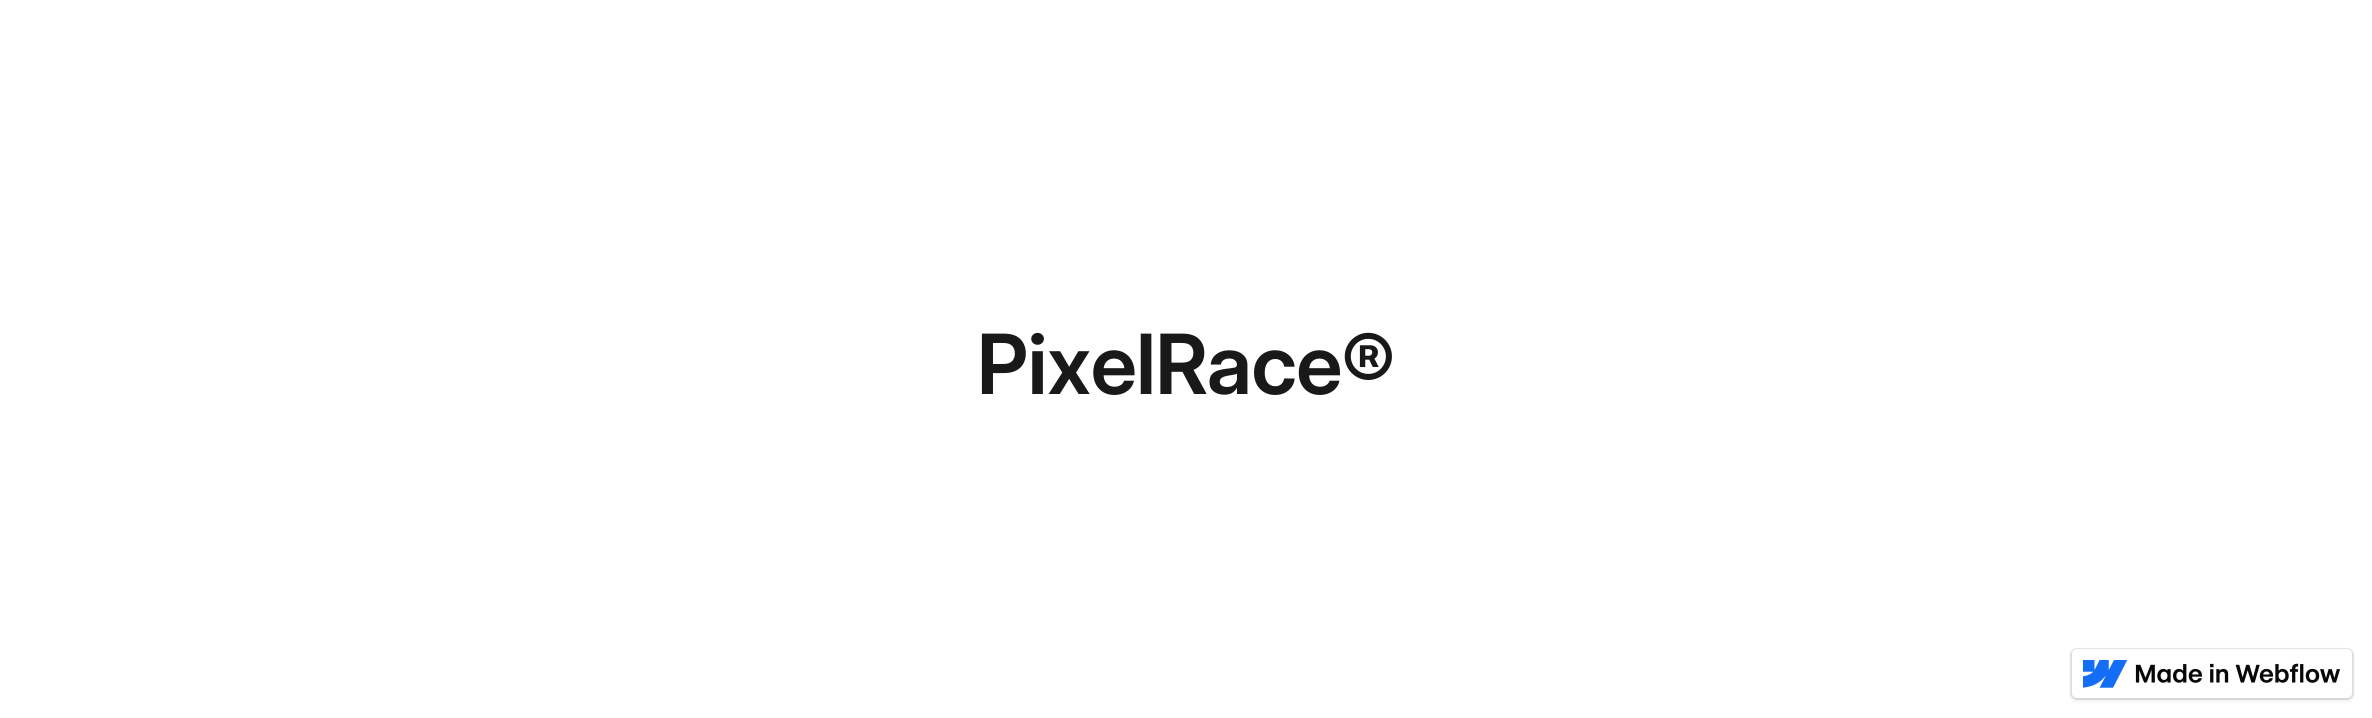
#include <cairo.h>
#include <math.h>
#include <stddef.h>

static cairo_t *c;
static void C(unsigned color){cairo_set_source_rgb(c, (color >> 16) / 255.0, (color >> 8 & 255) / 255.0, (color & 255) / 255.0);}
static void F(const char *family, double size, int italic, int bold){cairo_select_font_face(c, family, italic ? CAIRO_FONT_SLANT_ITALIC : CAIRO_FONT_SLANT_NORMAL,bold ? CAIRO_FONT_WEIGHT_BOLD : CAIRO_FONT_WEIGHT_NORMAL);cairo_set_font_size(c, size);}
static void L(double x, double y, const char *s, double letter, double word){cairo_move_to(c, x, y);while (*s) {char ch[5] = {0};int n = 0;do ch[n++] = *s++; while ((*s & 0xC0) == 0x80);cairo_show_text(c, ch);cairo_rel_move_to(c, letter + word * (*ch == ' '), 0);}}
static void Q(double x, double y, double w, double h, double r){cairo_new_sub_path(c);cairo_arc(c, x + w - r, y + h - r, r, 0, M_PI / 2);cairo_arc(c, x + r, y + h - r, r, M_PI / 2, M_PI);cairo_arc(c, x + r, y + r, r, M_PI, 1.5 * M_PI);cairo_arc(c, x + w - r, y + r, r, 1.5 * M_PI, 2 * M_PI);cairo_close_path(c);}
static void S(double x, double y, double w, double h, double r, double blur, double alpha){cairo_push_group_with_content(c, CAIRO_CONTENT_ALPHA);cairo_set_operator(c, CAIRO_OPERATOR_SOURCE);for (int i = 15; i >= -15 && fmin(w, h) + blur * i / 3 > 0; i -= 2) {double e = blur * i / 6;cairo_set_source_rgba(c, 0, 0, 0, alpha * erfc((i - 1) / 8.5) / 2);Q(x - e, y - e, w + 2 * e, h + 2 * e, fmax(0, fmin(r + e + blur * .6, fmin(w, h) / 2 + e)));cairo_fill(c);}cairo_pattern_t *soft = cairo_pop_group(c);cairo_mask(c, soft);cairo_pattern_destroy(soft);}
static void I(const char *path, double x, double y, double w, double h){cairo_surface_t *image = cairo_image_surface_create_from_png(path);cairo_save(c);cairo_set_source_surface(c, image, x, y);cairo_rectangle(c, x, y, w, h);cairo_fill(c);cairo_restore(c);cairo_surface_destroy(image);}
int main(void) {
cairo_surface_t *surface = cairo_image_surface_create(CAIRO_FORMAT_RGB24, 2372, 718);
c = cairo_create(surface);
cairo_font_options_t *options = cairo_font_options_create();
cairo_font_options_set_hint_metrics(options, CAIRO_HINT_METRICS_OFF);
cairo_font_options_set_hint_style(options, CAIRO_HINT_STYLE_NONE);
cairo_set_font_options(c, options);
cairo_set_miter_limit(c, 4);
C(0xffffff);
cairo_paint(c);
F("Inter SemiBold",83,0,0);
C(0x191919);
L(977,394,"PixelRace®",-.5,0);
C(0x000000);
S(2072,651,280,49,5,2.5,.1);
Q(2071,649,282,50,6);
cairo_set_source_rgba(c,0,0,0,0.1);
cairo_stroke(c);
C(0xffffff);
Q(2072,649,280,49,5);
cairo_fill(c);
I("1.png",2083,660,45,28);
I("2.png",2135,663,205,20);
cairo_surface_write_to_png(surface, "o.png");
cairo_font_options_destroy(options);
cairo_destroy(c);
cairo_surface_destroy(surface);
return 0;
}
